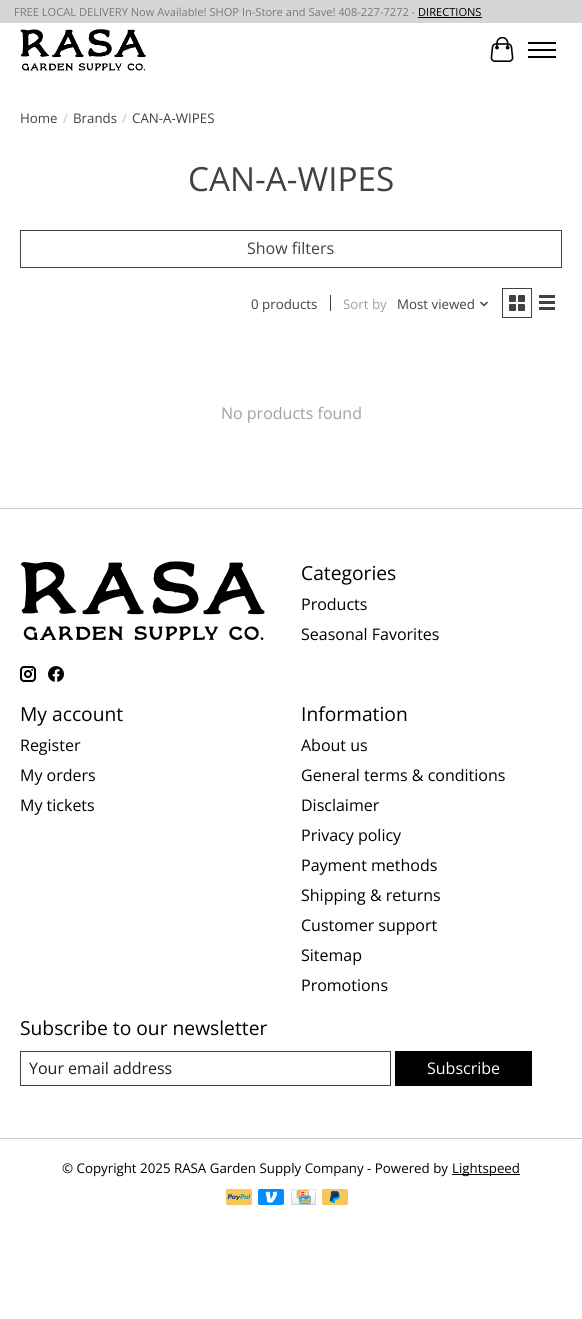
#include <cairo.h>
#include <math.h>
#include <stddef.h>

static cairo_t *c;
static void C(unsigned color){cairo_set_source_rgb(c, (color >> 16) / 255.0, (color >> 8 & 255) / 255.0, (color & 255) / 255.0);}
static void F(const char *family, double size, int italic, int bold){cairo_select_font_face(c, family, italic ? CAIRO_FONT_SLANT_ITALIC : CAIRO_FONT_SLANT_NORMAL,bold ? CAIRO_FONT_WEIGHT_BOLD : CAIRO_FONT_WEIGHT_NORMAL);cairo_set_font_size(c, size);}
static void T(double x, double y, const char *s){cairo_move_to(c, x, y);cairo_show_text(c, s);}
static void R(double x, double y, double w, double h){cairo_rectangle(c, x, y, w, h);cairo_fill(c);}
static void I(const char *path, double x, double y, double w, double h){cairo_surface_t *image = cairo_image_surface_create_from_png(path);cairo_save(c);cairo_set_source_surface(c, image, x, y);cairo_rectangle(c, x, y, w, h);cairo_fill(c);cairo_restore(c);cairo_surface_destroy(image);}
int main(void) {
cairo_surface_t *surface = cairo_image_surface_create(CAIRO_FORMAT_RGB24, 582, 1319);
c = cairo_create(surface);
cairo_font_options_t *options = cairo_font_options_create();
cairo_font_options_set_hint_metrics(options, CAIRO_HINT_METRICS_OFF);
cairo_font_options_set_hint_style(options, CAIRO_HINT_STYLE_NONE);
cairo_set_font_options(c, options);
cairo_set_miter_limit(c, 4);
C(0xffffff);
cairo_paint(c);
C(0xd6d6d6);
R(0,0,582,23);
F("Open Sans",11.1,0,0);
C(0x797979);
T(14,16,"FREE LOCAL DELIVERY Now Available! SHOP In-Store and Save! 408-227-7272 -");
C(0x000000);
T(418,16,"DIRECTIONS");
R(418,17,64,1);
I("1.png",20,29,126,42);
I("2.png",490,37,24,25);
R(528,49,28,2);
R(528,42,28,2);
R(528,56,28,2);
F("Open Sans",13.3,0,0);
C(0x414141);
T(20,123,"Home");
C(0xc6c6c6);
T(63,123,"/");
C(0x414141);
T(73,123,"Brands");
C(0xc6c6c6);
T(122,123,"/");
C(0x414141);
T(132,123,"CAN-A-WIPES");
F("Open Sans",33.25,0,0);
T(188,191,"CAN-A-WIPES");
cairo_rectangle(c,20.5,230.5,541,37);
cairo_set_line_width(c,1);
cairo_stroke(c);
F("Open Sans",16,0,0);
T(247,254,"Show filters");
F("Open Sans",13.3,0,0);
T(251,309,"0 products");
R(330,295,1,16);
C(0xa0a0a0);
T(343,309,"Sort by");
C(0x414141);
T(397,309,"Most viewed");
I("3.png",480,301,8,6);
cairo_rectangle(c,502.5,288.5,29,29);
cairo_stroke(c);
I("4.png",509,295,16,16);
R(539,295,16,3);
R(539,301,16,3);
R(539,307,16,3);
F("Open Sans",16,0,0);
C(0xa0a0a0);
T(221,419,"No products found");
C(0xcccccc);
R(0,508,582,1);
I("5.png",20,561,245,80);
I("6.png",20,666,16,16);
I("7.png",48,666,16,16);
F("Open Sans",19.25,0,0);
C(0x000000);
T(301,580,"Categories");
F("Open Sans",16,0,0);
T(301,610,"Products");
T(301,640,"Seasonal Favorites");
F("Open Sans",19.25,0,0);
T(20,721,"My account");
F("Open Sans",16,0,0);
T(20,751,"Register");
T(20,781,"My orders");
T(20,811,"My tickets");
F("Open Sans",19.25,0,0);
T(301,721,"Information");
F("Open Sans",16,0,0);
T(301,751,"About us");
T(301,781,"General terms & conditions");
T(301,811,"Disclaimer");
T(301,841,"Privacy policy");
T(301,871,"Payment methods");
T(301,901,"Shipping & returns");
T(301,931,"Customer support");
T(301,961,"Sitemap");
T(301,991,"Promotions");
F("Open Sans",19.25,0,0);
T(20,1035,"Subscribe to our newsletter");
cairo_rectangle(c,20.5,1051.5,370,34);
C(0x414141);
cairo_stroke(c);
F("Open Sans",16,0,0);
C(0x1c1c21);
T(29,1074,"Your email address");
C(0x000000);
R(395,1051,137,35);
C(0xffffff);
T(427,1074,"Subscribe");
C(0xcccccc);
R(0,1138,582,1);
F("Open Sans",13.3,0,0);
C(0x000000);
T(62,1173,"© Copyright 2025 RASA Garden Supply Company - Powered by");
R(452,1174,68,1);
T(452,1173,"Lightspeed");
I("8.png",226,1189,26,16);
I("9.png",258,1189,26,16);
I("10.png",291,1189,25,16);
I("11.png",322,1189,26,16);
cairo_surface_write_to_png(surface, "o.png");
cairo_font_options_destroy(options);
cairo_destroy(c);
cairo_surface_destroy(surface);
return 0;
}
